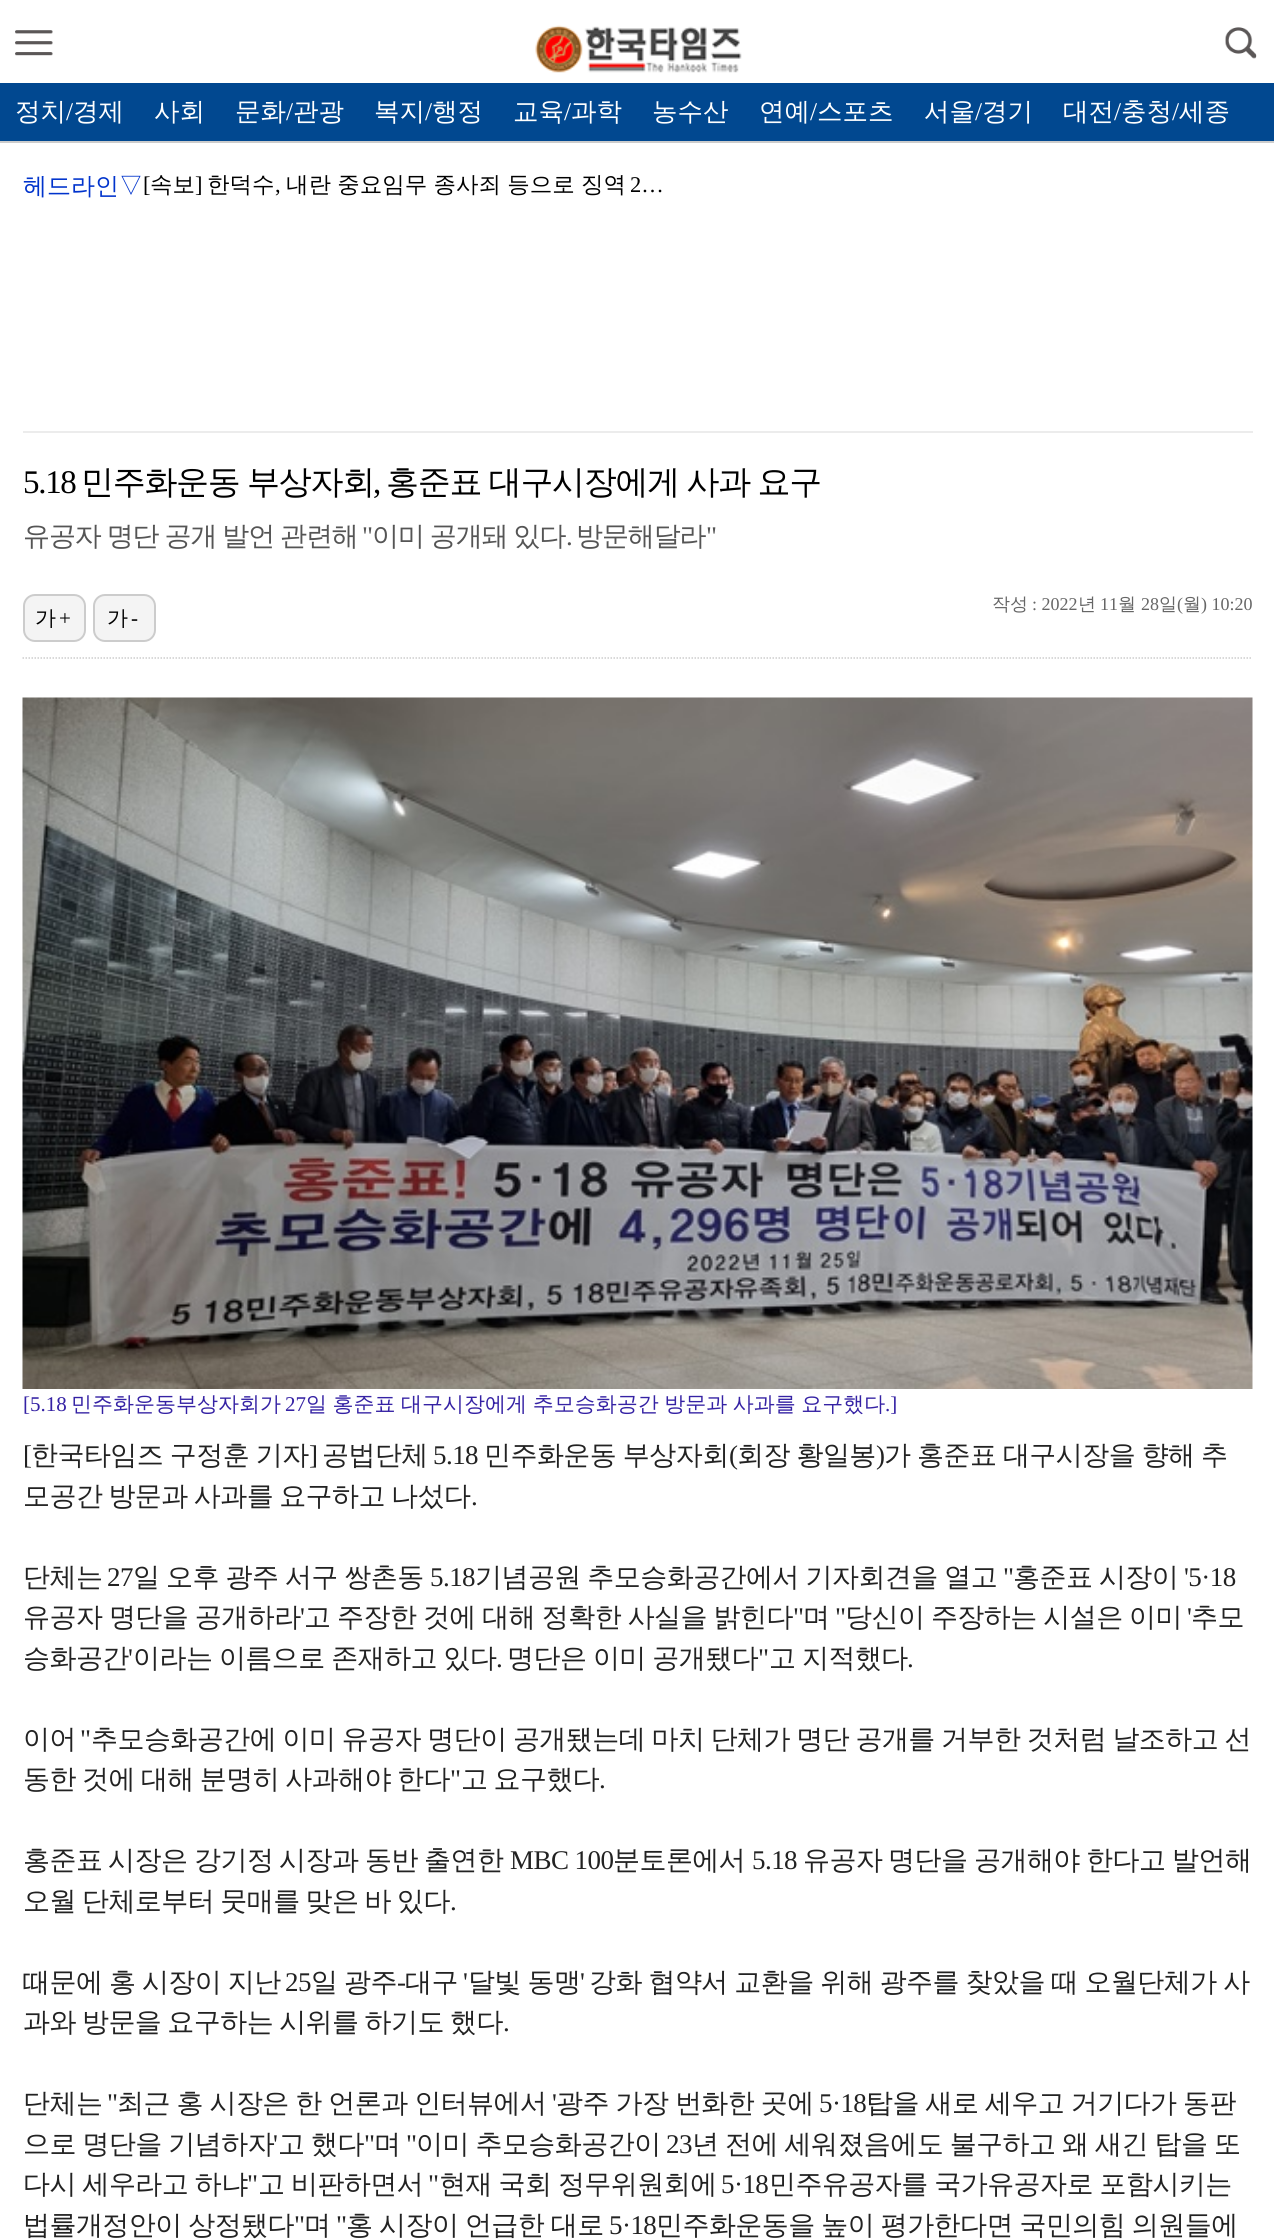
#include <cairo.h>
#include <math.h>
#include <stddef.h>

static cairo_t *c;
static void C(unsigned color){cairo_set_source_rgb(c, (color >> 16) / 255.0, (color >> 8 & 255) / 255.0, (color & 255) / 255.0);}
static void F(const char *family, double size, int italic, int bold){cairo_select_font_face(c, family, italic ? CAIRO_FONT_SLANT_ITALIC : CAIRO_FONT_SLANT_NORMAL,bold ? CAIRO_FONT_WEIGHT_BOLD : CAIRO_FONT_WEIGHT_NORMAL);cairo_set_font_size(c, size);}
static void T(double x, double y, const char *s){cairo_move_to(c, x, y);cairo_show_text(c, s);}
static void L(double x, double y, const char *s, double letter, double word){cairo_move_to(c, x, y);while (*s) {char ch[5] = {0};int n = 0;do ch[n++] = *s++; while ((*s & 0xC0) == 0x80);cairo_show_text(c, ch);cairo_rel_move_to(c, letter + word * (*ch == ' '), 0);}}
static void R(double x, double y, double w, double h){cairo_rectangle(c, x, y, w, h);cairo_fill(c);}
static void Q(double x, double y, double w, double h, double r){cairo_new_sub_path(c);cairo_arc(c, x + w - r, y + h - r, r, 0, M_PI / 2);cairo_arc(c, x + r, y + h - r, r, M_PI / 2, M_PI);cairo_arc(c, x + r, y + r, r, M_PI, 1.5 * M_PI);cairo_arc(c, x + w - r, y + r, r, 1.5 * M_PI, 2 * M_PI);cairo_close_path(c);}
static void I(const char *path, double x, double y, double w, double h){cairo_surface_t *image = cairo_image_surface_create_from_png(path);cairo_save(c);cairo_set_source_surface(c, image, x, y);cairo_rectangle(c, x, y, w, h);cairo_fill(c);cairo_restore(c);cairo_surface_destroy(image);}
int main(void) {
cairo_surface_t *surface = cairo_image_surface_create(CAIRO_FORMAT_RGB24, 1274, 2240);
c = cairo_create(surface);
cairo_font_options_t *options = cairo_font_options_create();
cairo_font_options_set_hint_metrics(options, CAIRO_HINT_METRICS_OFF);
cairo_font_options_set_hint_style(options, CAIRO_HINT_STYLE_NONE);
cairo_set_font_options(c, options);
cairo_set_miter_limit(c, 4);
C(0xffffff);
cairo_paint(c);
I("1.png",15,30,38,26);
I("2.png",535,25,207,48);
I("3.png",1225,27,32,32);
C(0x014890);
R(0,83,1274,58);
C(0xcccccc);
R(0,141,1274,2);
F("WenQuanYi Zen Hei Medium",25.5,0,0);
C(0xffffff);
T(15,120,"정치");
F("Liberation Serif",25.5,0,0);
T(66,120,"/");
F("WenQuanYi Zen Hei Medium",25.5,0,0);
T(73,120,"경제");
T(154,120,"사회");
T(235,120,"문화");
F("Liberation Serif",25.5,0,0);
T(286,120,"/");
F("WenQuanYi Zen Hei Medium",25.5,0,0);
T(293,120,"관광");
T(374,120,"복지");
F("Liberation Serif",25.5,0,0);
T(425,120,"/");
F("WenQuanYi Zen Hei Medium",25.5,0,0);
T(432,120,"행정");
T(513,120,"교육");
F("Liberation Serif",25.5,0,0);
T(564,120,"/");
F("WenQuanYi Zen Hei Medium",25.5,0,0);
T(571,120,"과학");
T(652,120,"농수산");
T(759,120,"연예");
F("Liberation Serif",25.5,0,0);
T(810,120,"/");
F("WenQuanYi Zen Hei Medium",25.5,0,0);
T(817,120,"스포츠");
T(924,120,"서울");
F("Liberation Serif",25.5,0,0);
T(975,120,"/");
F("WenQuanYi Zen Hei Medium",25.5,0,0);
T(982,120,"경기");
T(1063,120,"대전");
F("Liberation Serif",25.5,0,0);
T(1114,120,"/");
F("WenQuanYi Zen Hei Medium",25.5,0,0);
T(1121,120,"충청");
F("Liberation Serif",25.5,0,0);
T(1172,120,"/");
F("WenQuanYi Zen Hei Medium",25.5,0,0);
T(1179,120,"세종");
F("WenQuanYi Zen Hei Medium",24,0,0);
C(0x0033cc);
T(23,194,"헤드라인▽");
F("Liberation Serif",22.5,0,0);
C(0x000000);
T(143,192,"[");
F("WenQuanYi Zen Hei Medium",22.5,0,0);
T(150,192,"속보");
F("Liberation Serif",22.5,0,0);
T(195,192,"]");
F("WenQuanYi Zen Hei Medium",22.5,0,0);
T(207,192,"한덕수");
F("Liberation Serif",22.5,0,0);
T(275,192,",");
F("WenQuanYi Zen Hei Medium",22.5,0,0);
L(286,192,"내란 중요임무 종사죄 등으로 징역",0,-.5);
F("Liberation Serif",22.5,0,0);
T(630,192,"2…");
C(0xececec);
R(23,431,1230,2);
F("Liberation Serif",33,0,0);
C(0x000000);
L(23,493,"5.18",-1.3,0);
F("WenQuanYi Zen Hei Medium",33,0,0);
L(81,493,"민주화운동 부상자회",-1.3,-1);
F("Liberation Serif",33,0,0);
L(373,493,",",-1.3,0);
F("WenQuanYi Zen Hei Medium",33,0,0);
L(386,493,"홍준표 대구시장에게 사과 요구",-1.3,-1);
F("WenQuanYi Zen Hei Medium",27,0,0);
C(0x555555);
L(23,545,"유공자 명단 공개 발언 관련해",-1.1,-1);
F("Liberation Serif",27,0,0);
L(362,545,"\"",-1.1,0);
F("WenQuanYi Zen Hei Medium",27,0,0);
L(372,545,"이미 공개돼 있다",-1.1,-1);
L(576,545,"방문해달라",-1.1,0);
F("Liberation Serif",27,0,0);
L(706,545,"\"",-1.1,0);
L(566,545,".",-1.1,0);
cairo_new_path(c);
cairo_move_to(c,22.5,658);
cairo_line_to(c,1252.5,658);
C(0xcccccc);
cairo_set_line_width(c,1.5);
cairo_set_dash(c,(double[]){1.5,1.5},2,0);
cairo_stroke(c);
F("WenQuanYi Zen Hei Medium",18,0,0);
C(0x666666);
T(992,610,"작성");
F("Liberation Serif",18,0,0);
T(1032,610,": 2022");
F("WenQuanYi Zen Hei Medium",18,0,0);
T(1078,610,"년");
F("Liberation Serif",18,0,0);
T(1100,610,"11");
F("WenQuanYi Zen Hei Medium",18,0,0);
T(1118,610,"월");
F("Liberation Serif",18,0,0);
T(1141,610,"28");
F("WenQuanYi Zen Hei Medium",18,0,0);
T(1159,610,"일");
F("Liberation Serif",18,0,0);
T(1177,610,"(");
F("WenQuanYi Zen Hei Medium",18,0,0);
T(1183,610,"월");
F("Liberation Serif",18,0,0);
T(1201,610,") 10:20");
C(0xf4f4f4);
Q(24,595,61,46,11);
cairo_fill_preserve(c);
C(0xcccccc);
cairo_set_line_width(c,2);
cairo_set_dash(c,NULL,0,0);
cairo_stroke(c);
F("WenQuanYi Zen Hei Medium",21,0,0);
C(0x000000);
L(35,625,"가",3,0);
F("Liberation Serif",21,0,0);
L(59,625,"+",3,0);
C(0xf4f4f4);
Q(94,595,61,46,11);
cairo_fill_preserve(c);
C(0xcccccc);
cairo_stroke(c);
F("WenQuanYi Zen Hei Medium",21,0,0);
C(0x000000);
L(107,625,"가",3,0);
F("Liberation Serif",21,0,0);
L(131,625,"-",3,0);
I("4.png",22,697,1231,692);
C(0x3522a4);
T(23,1411,"[5.18");
F("WenQuanYi Zen Hei Medium",21,0,0);
T(71,1411,"민주화운동부상자회가");
F("Liberation Serif",21,0,0);
T(285,1411,"27");
F("WenQuanYi Zen Hei Medium",21,0,0);
L(306,1411,"일 홍준표 대구시장에게 추모승화공간 방문과 사과를 요구했다",0,-.75);
F("Liberation Serif",21,0,0);
T(885,1411,".]");
F("Liberation Serif",27,0,0);
C(0x222222);
L(23,1464,"[",-.55,0);
F("WenQuanYi Zen Hei Medium",27,0,0);
L(31,1464,"한국타임즈 구정훈 기자",-.55,-1);
F("Liberation Serif",27,0,0);
L(309,1464,"]",-.55,0);
F("WenQuanYi Zen Hei Medium",27,0,0);
L(322,1464,"공법단체",-.55,0);
F("Liberation Serif",27,0,0);
L(433,1464,"5.18",-.55,0);
F("WenQuanYi Zen Hei Medium",27,0,0);
L(484,1464,"민주화운동 부상자회",-.55,-1);
F("Liberation Serif",27,0,0);
L(729,1464,"(",-.55,0);
F("WenQuanYi Zen Hei Medium",27,0,0);
L(737,1464,"회장 황일봉",-.55,-1);
F("Liberation Serif",27,0,0);
L(876,1464,")",-.55,0);
F("WenQuanYi Zen Hei Medium",27,0,0);
L(884,1464,"가 홍준표 대구시장을 향해 추",-.55,-1);
L(23,1505,"모공간 방문과 사과를 요구하고 나섰다",-.55,-1.5);
F("Liberation Serif",27,0,0);
L(471,1505,".",-.55,0);
F("WenQuanYi Zen Hei Medium",27,0,0);
L(23,1586,"단체는",-.55,0);
F("Liberation Serif",27,0,0);
L(107,1586,"27",-.55,0);
F("WenQuanYi Zen Hei Medium",27,0,0);
L(133,1586,"일 오후 광주 서구 쌍촌동",-.55,-1);
F("Liberation Serif",27,0,0);
L(430,1586,"5.18",-.55,0);
F("WenQuanYi Zen Hei Medium",27,0,0);
L(475,1586,"기념공원 추모승화공간에서 기자회견을 열고",-.55,-1);
F("Liberation Serif",27,0,0);
L(1003,1586,"\"",-.55,0);
F("WenQuanYi Zen Hei Medium",27,0,0);
L(1013,1586,"홍준표 시장이",-.55,-1);
F("Liberation Serif",27,0,0);
L(1184,1586,"'5·18",-.55,0);
F("WenQuanYi Zen Hei Medium",27,0,0);
L(23,1626,"유공자 명단을 공개하라",-.55,-1);
F("Liberation Serif",27,0,0);
L(300,1626,"'",-.55,0);
F("WenQuanYi Zen Hei Medium",27,0,0);
L(304,1626,"고 주장한 것에 대해 정확한 사실을 밝힌다",-.55,-1);
F("Liberation Serif",27,0,0);
L(793,1626,"\"",-.55,0);
F("WenQuanYi Zen Hei Medium",27,0,0);
L(803,1626,"며",-.55,0);
F("Liberation Serif",27,0,0);
L(835,1626,"\"",-.55,0);
F("WenQuanYi Zen Hei Medium",27,0,0);
L(845,1626,"당신이 주장하는 시설은 이미",-.55,-1);
F("Liberation Serif",27,0,0);
L(1187,1626,"'",-.55,0);
F("WenQuanYi Zen Hei Medium",27,0,0);
L(1191,1626,"추모",-.55,0);
L(23,1667,"승화공간",-.55,0);
F("Liberation Serif",27,0,0);
L(128,1667,"'",-.55,0);
F("WenQuanYi Zen Hei Medium",27,0,0);
L(133,1667,"이라는 이름으로 존재하고 있다",-.55,-1);
L(507,1667,"명단은 이미 공개됐다",-.55,-1);
F("Liberation Serif",27,0,0);
L(758,1667,"\"",-.55,0);
F("WenQuanYi Zen Hei Medium",27,0,0);
L(769,1667,"고 지적했다",-.55,-1);
F("Liberation Serif",27,0,0);
L(496,1667,".",-.55,0);
L(907,1667,".",-.55,0);
F("WenQuanYi Zen Hei Medium",27,0,0);
L(23,1748,"이어",-.55,0);
F("Liberation Serif",27,0,0);
L(80,1748,"\"",-.55,0);
F("WenQuanYi Zen Hei Medium",27,0,0);
L(91,1748,"추모승화공간에 이미 유공자 명단이 공개됐는데 마치 단체가 명단 공개를 거부한 것처럼 날조하고 선",-.55,-1.25);
L(23,1788,"동한 것에 대해 분명히 사과해야 한다",-.55,-1.5);
F("Liberation Serif",27,0,0);
L(450,1788,"\"",-.55,0);
F("WenQuanYi Zen Hei Medium",27,0,0);
L(461,1788,"고 요구했다",-.55,-1.5);
F("Liberation Serif",27,0,0);
L(599,1788,".",-.55,0);
F("WenQuanYi Zen Hei Medium",27,0,0);
L(23,1869,"홍준표",-.55,0);
L(108,1869,"시장은",-.55,0);
L(194,1869,"강기정",-.55,0);
L(279,1869,"시장과",-.55,0);
L(365,1869,"동반",-.55,0);
L(424,1869,"출연한",-.55,0);
F("Liberation Serif",27,0,0);
L(510,1869,"MBC 100",-.55,0);
F("WenQuanYi Zen Hei Medium",27,0,0);
L(613,1869,"분토론에서",-.55,0);
F("Liberation Serif",27,0,0);
L(752,1869,"5.18",-.55,0);
F("WenQuanYi Zen Hei Medium",27,0,0);
L(803,1869,"유공자",-.55,0);
L(888,1869,"명단을",-.55,0);
L(974,1869,"공개해야",-.55,0);
L(1086,1869,"한다고",-.55,0);
L(1172,1869,"발언해",-.55,0);
L(23,1910,"오월 단체로부터 뭇매를 맞은 바 있다",-.55,-1.5);
F("Liberation Serif",27,0,0);
L(450,1910,".",-.55,0);
F("WenQuanYi Zen Hei Medium",27,0,0);
L(23,1991,"때문에 홍 시장이 지난",-.55,-1);
F("Liberation Serif",27,0,0);
L(285,1991,"25",-.55,0);
F("WenQuanYi Zen Hei Medium",27,0,0);
L(311,1991,"일 광주",-.55,-1);
L(405,1991,"대구",-.55,0);
F("Liberation Serif",27,0,0);
L(463,1991,"'",-.55,0);
F("WenQuanYi Zen Hei Medium",27,0,0);
L(468,1991,"달빛 동맹",-.55,-1);
F("Liberation Serif",27,0,0);
L(580,1991,"'",-.55,0);
F("WenQuanYi Zen Hei Medium",27,0,0);
L(589,1991,"강화 협약서 교환을 위해 광주를 찾았을 때 오월단체가 사",-.55,-1);
F("Liberation Serif",27,0,0);
L(397,1991,"-",-.55,0);
F("WenQuanYi Zen Hei Medium",27,0,0);
L(23,2031,"과와 방문을 요구하는 시위를 하기도 했다",-.55,-1.5);
F("Liberation Serif",27,0,0);
L(503,2031,".",-.55,0);
F("WenQuanYi Zen Hei Medium",27,0,0);
L(23,2112,"단체는",-.55,0);
F("Liberation Serif",27,0,0);
L(107,2112,"\"",-.55,0);
F("WenQuanYi Zen Hei Medium",27,0,0);
L(117,2112,"최근 홍 시장은 한 언론과 인터뷰에서",-.55,-1);
F("Liberation Serif",27,0,0);
L(552,2112,"'",-.55,0);
F("WenQuanYi Zen Hei Medium",27,0,0);
L(556,2112,"광주 가장 번화한 곳에",-.55,-1);
F("Liberation Serif",27,0,0);
L(819,2112,"5·18",-.55,0);
F("WenQuanYi Zen Hei Medium",27,0,0);
L(866,2112,"탑을 새로 세우고 거기다가 동판",-.55,-1);
L(23,2153,"으로 명단을 기념하자",-.55,-1);
F("Liberation Serif",27,0,0);
L(273,2153,"'",-.55,0);
F("WenQuanYi Zen Hei Medium",27,0,0);
L(278,2153,"고 했다",-.55,-1);
F("Liberation Serif",27,0,0);
L(364,2153,"\"",-.55,0);
F("WenQuanYi Zen Hei Medium",27,0,0);
L(374,2153,"며",-.55,0);
F("Liberation Serif",27,0,0);
L(406,2153,"\"",-.55,0);
F("WenQuanYi Zen Hei Medium",27,0,0);
L(416,2153,"이미 추모승화공간이",-.55,-1);
F("Liberation Serif",27,0,0);
L(666,2153,"23",-.55,0);
F("WenQuanYi Zen Hei Medium",27,0,0);
L(692,2153,"년 전에 세워졌음에도 불구하고 왜 새긴 탑을 또",-.55,-1);
L(23,2193,"다시 세우라고 하냐",-.55,-1);
F("Liberation Serif",27,0,0);
L(247,2193,"\"",-.55,0);
F("WenQuanYi Zen Hei Medium",27,0,0);
L(258,2193,"고 비판하면서",-.55,-1);
F("Liberation Serif",27,0,0);
L(428,2193,"\"",-.55,0);
F("WenQuanYi Zen Hei Medium",27,0,0);
L(439,2193,"현재 국회 정무위원회에",-.55,-1);
F("Liberation Serif",27,0,0);
L(721,2193,"5·18",-.55,0);
F("WenQuanYi Zen Hei Medium",27,0,0);
L(769,2193,"민주유공자를 국가유공자로 포함시키는",-.55,-1);
L(23,2234,"법률개정안이 상정됐다",-.55,-1);
F("Liberation Serif",27,0,0);
L(294,2234,"\"",-.55,0);
F("WenQuanYi Zen Hei Medium",27,0,0);
L(304,2234,"며",-.55,0);
F("Liberation Serif",27,0,0);
L(336,2234,"\"",-.55,0);
F("WenQuanYi Zen Hei Medium",27,0,0);
L(346,2234,"홍 시장이 언급한 대로",-.55,-1);
F("Liberation Serif",27,0,0);
L(609,2234,"5·18",-.55,0);
F("WenQuanYi Zen Hei Medium",27,0,0);
L(656,2234,"민주화운동을 높이 평가한다면 국민의힘 의원들에",-.55,-1);
cairo_surface_write_to_png(surface, "o.png");
cairo_font_options_destroy(options);
cairo_destroy(c);
cairo_surface_destroy(surface);
return 0;
}
